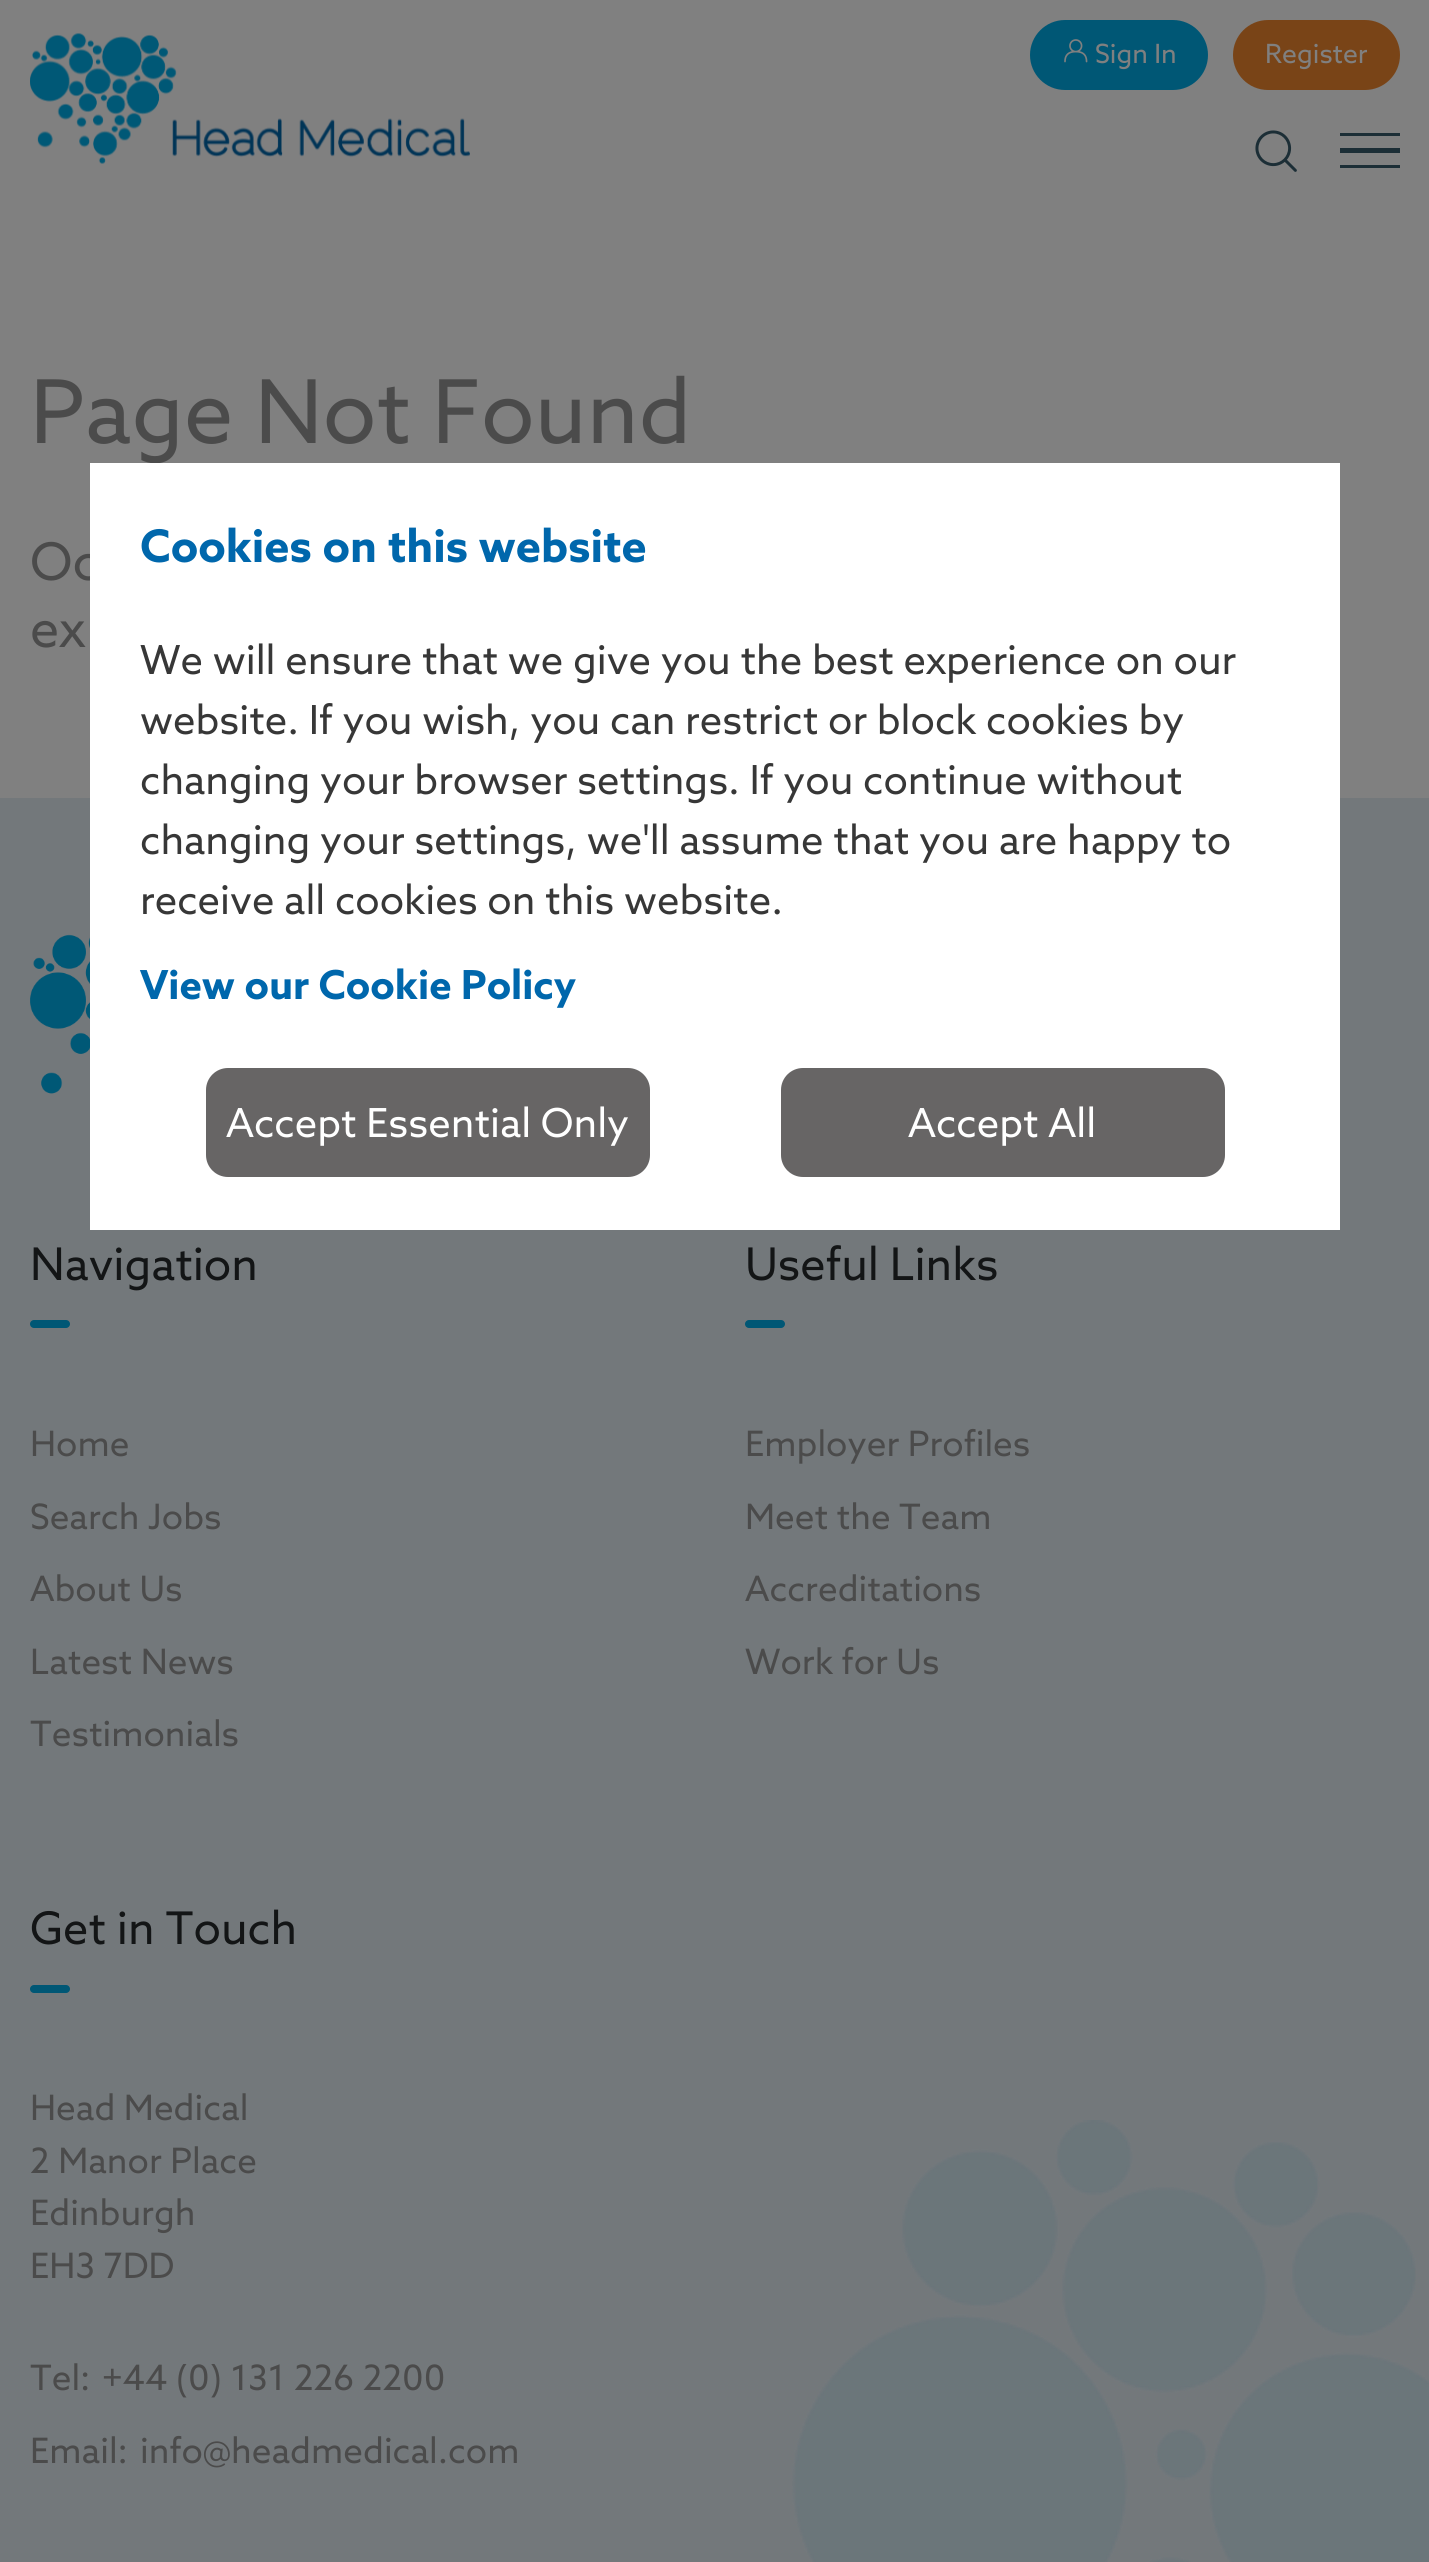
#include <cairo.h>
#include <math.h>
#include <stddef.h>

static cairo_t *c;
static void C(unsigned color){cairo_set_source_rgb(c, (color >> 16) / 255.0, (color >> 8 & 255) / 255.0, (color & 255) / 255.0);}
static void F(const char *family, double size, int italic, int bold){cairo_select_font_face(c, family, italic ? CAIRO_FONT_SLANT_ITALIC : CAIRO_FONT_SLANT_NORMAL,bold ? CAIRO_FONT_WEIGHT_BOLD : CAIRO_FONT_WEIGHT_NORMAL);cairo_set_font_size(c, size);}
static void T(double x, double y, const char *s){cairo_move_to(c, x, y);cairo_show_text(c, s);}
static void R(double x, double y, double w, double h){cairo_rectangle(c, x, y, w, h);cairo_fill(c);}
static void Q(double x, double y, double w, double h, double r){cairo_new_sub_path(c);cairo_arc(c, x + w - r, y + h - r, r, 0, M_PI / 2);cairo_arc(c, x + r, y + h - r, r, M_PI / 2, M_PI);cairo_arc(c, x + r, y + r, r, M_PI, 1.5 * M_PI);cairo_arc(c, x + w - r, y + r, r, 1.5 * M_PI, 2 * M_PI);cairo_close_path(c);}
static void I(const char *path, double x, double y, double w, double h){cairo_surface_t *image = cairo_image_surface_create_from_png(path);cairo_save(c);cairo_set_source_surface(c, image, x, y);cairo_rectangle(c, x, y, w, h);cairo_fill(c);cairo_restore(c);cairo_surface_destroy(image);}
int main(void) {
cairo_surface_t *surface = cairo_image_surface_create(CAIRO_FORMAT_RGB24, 1429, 2562);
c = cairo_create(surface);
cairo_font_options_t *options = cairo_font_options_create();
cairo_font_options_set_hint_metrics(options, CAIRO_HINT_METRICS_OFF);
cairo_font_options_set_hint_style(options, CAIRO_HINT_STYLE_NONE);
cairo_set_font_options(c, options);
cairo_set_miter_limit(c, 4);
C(0x808080);
cairo_paint(c);
I("1.png",30,33,440,131);
C(0x005775);
Q(1030,20,178,70,35);
cairo_fill(c);
I("2.png",1064,39,24,24);
F("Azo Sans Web",26.5,0,0);
C(0x808080);
T(1095,63,"Sign In");
C(0x794417);
Q(1233,20,167,70,35);
cairo_fill(c);
C(0x808080);
T(1265,63,"Register");
I("3.png",1255,130,42,42);
C(0x1c2e36);
R(1340,133,60,3);
R(1340,148,60,5);
R(1340,165,60,3);
F("Azo Sans Web",88,0,0);
C(0x4b4b4b);
T(30,443,"Page Not Found");
F("Azo Sans Web",52,0,0);
T(30,580,"Oo");
T(30,647,"ex");
C(0x73787b);
R(0,798,1429,1764);
C(0xffffff);
R(90,463,1250,767);
F("Azo Sans Web",45,0,1);
C(0x0067ac);
T(140,562,"Cookies on this website");
F("Azo Sans Web",40,0,0);
C(0x373737);
T(140,674,"We will ensure that we give you the best experience on our");
T(140,734,"website. If you wish, you can restrict or block cookies by");
T(140,794,"changing your browser settings. If you continue without");
T(140,854,"changing your settings, we'll assume that you are happy to");
T(140,914,"receive all cookies on this website.");
F("Azo Sans Web",40,0,1);
C(0x0067ac);
T(140,999,"View our Cookie Policy");
C(0x676565);
Q(204.5,1066.5,447,112,23.5);
cairo_fill_preserve(c);
C(0xffffff);
cairo_set_line_width(c,3);
cairo_stroke(c);
F("Azo Sans Web",40,0,0);
T(226,1137,"Accept Essential Only");
C(0x676565);
Q(779.5,1066.5,447,112,23.5);
cairo_fill_preserve(c);
C(0xffffff);
cairo_stroke(c);
T(908,1137,"Accept All");
I("4.png",792,2120,637,442);
I("5.png",30,934,60,160);
F("Azo Sans Web",45,0,0);
C(0x131516);
T(30,1280,"Navigation");
C(0x005775);
Q(30,1320,40,8,4);
cairo_fill(c);
F("Azo Sans Web",35,0,0);
C(0x4b4b4b);
T(30,1456,"Home");
T(30,1529,"Search Jobs");
T(30,1601,"About Us");
T(30,1674,"Latest News");
T(30,1746,"Testimonials");
F("Azo Sans Web",45,0,0);
C(0x131516);
T(745,1280,"Useful Links");
C(0x005775);
Q(745,1320,40,8,4);
cairo_fill(c);
F("Azo Sans Web",35,0,0);
C(0x4b4b4b);
T(745,1456,"Employer Profiles");
T(745,1529,"Meet the Team");
T(745,1601,"Accreditations");
T(745,1674,"Work for Us");
F("Azo Sans Web",45,0,0);
C(0x131516);
T(30,1944,"Get in Touch");
C(0x005775);
Q(30,1985,40,8,4);
cairo_fill(c);
F("Azo Sans Web",35,0,0);
C(0x4b4b4b);
T(30,2120,"Head Medical");
T(30,2173,"2 Manor Place");
T(30,2225,"Edinburgh");
T(30,2278,"EH3 7DD");
T(30,2390,"Tel:");
T(102,2390,"+44 (0) 131 226 2200");
T(30,2463,"Email:");
T(140,2463,"info@headmedical.com");
cairo_surface_write_to_png(surface, "o.png");
cairo_font_options_destroy(options);
cairo_destroy(c);
cairo_surface_destroy(surface);
return 0;
}
